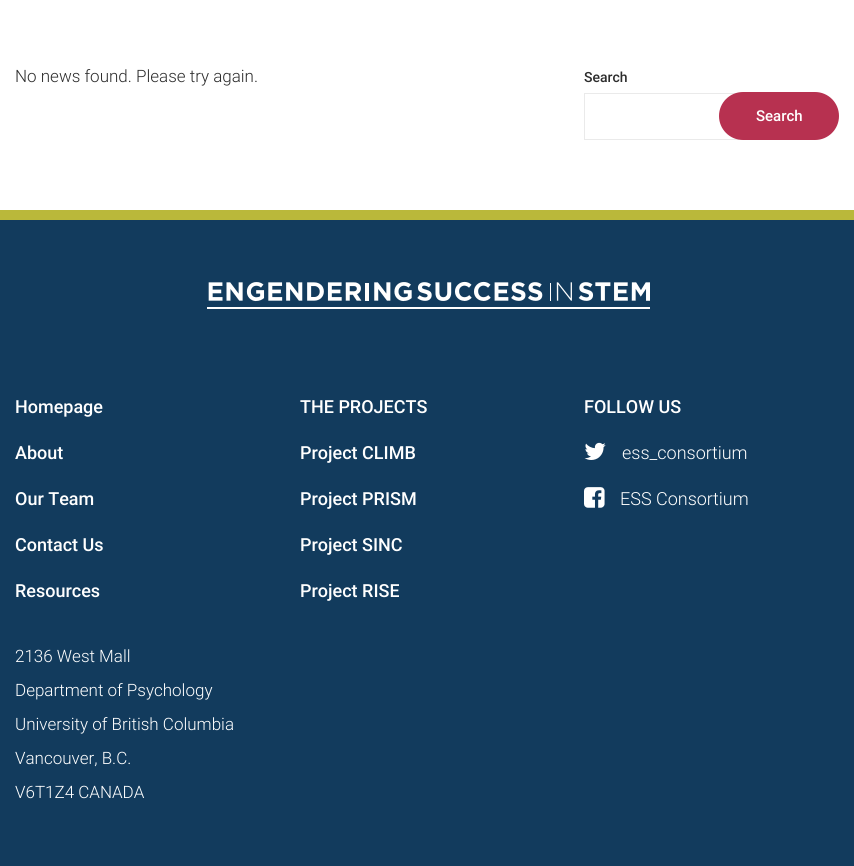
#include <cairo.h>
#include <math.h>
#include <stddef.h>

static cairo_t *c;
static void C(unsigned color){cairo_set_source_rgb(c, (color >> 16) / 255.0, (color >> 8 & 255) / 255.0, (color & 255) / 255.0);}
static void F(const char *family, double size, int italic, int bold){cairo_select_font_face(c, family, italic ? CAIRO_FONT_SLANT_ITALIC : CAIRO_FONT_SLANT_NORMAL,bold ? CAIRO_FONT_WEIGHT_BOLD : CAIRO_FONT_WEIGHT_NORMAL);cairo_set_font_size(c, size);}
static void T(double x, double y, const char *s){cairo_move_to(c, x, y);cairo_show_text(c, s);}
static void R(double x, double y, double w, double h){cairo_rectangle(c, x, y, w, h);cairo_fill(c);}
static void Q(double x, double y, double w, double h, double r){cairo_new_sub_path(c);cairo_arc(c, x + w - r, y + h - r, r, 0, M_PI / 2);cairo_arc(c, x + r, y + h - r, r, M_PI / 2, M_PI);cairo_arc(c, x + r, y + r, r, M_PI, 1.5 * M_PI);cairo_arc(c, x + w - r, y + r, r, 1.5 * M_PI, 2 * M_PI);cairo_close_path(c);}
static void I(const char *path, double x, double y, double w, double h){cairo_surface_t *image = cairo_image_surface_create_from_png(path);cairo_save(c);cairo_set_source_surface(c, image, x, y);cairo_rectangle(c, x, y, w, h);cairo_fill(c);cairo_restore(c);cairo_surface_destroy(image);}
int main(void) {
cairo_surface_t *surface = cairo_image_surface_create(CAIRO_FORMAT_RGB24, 854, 866);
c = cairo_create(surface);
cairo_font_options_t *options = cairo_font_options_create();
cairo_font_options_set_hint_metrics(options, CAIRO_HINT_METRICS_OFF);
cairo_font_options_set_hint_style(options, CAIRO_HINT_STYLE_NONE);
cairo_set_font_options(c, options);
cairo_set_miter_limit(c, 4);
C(0x123b5d);
cairo_paint(c);
C(0xffffff);
R(0,0,854,210);
F("Roboto Light",17,0,0);
C(0x2d2d2d);
T(15,82,"No news found. Please try again.");
F("Roboto Medium",14,0,0);
T(584,82,"Search");
cairo_rectangle(c,584.5,93.5,154,46);
C(0xeaeaea);
cairo_set_line_width(c,1);
cairo_stroke(c);
C(0xb73150);
Q(720,93,118,46,23);
cairo_fill_preserve(c);
cairo_set_line_width(c,2);
cairo_stroke(c);
F("Roboto Medium",15,0,0);
C(0xffffff);
T(756,121,"Search");
C(0xbab83a);
R(0,210,854,10);
I("1.png",207,281,443,28);
F("Roboto Medium",18,0,0);
C(0xffffff);
T(15,413,"Homepage");
T(15,459,"About");
T(15,505,"Our Team");
T(15,551,"Contact Us");
T(15,597,"Resources");
T(300,413,"THE PROJECTS");
T(300,459,"Project CLIMB");
T(300,505,"Project PRISM");
T(300,551,"Project SINC");
T(300,597,"Project RISE");
T(584,413,"FOLLOW US");
I("2.png",584,442,22,18);
F("Roboto Light",18,0,0);
T(622,459,"ess_consortium");
I("3.png",584,487,21,21);
T(620,505,"ESS Consortium");
F("Roboto Light",17,0,0);
T(15,662,"2136 West Mall");
T(15,696,"Department of Psychology");
T(15,730,"University of British Columbia");
T(15,764,"Vancouver, B.C.");
T(15,798,"V6T1Z4 CANADA");
cairo_surface_write_to_png(surface, "o.png");
cairo_font_options_destroy(options);
cairo_destroy(c);
cairo_surface_destroy(surface);
return 0;
}
